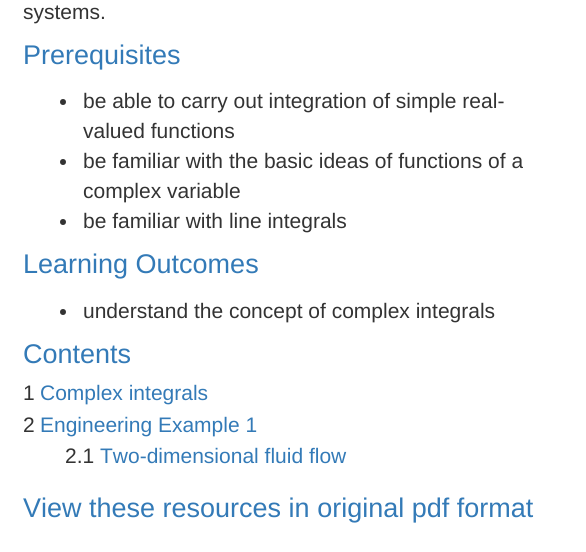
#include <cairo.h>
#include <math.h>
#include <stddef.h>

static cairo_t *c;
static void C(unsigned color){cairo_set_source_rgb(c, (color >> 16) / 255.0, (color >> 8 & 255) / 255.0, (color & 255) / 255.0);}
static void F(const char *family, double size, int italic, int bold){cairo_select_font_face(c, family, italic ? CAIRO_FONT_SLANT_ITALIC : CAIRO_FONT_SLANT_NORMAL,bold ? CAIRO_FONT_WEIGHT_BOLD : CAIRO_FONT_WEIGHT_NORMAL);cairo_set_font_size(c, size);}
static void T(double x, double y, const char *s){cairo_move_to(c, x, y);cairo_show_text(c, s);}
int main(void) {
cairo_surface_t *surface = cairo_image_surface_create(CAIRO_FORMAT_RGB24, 586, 552);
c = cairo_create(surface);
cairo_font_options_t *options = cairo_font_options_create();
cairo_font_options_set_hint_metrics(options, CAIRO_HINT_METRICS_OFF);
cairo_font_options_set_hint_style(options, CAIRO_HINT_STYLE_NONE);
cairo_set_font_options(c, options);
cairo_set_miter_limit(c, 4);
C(0xffffff);
cairo_paint(c);
F("Liberation Sans",21,0,0);
C(0x333333);
T(23,19,"systems.");
F("Liberation Sans",27,0,0);
C(0x337ab7);
T(23,64,"Prerequisites");
C(0x333333);
cairo_new_path(c);
cairo_arc(c,63,102,3,0,2 * M_PI);
cairo_fill(c);
F("Liberation Sans",21,0,0);
T(83,108,"be able to carry out integration of simple real-");
T(83,138,"valued functions");
cairo_new_path(c);
cairo_arc(c,63,162,3,0,2 * M_PI);
cairo_fill(c);
T(83,168,"be familiar with the basic ideas of functions of a");
T(83,198,"complex variable");
cairo_new_path(c);
cairo_arc(c,63,222,3,0,2 * M_PI);
cairo_fill(c);
T(83,228,"be familiar with line integrals");
F("Liberation Sans",27,0,0);
C(0x337ab7);
T(23,273,"Learning Outcomes");
C(0x333333);
cairo_new_path(c);
cairo_arc(c,63,312,3,0,2 * M_PI);
cairo_fill(c);
F("Liberation Sans",21,0,0);
T(83,318,"understand the concept of complex integrals");
F("Liberation Sans",27,0,0);
C(0x337ab7);
T(23,363,"Contents");
F("Liberation Sans",21,0,0);
C(0x333333);
T(23,400,"1");
C(0x337ab7);
T(40,400,"Complex integrals");
C(0x333333);
T(23,432,"2");
C(0x337ab7);
T(40,432,"Engineering Example 1");
C(0x333333);
T(65,463,"2.1");
C(0x337ab7);
T(100,463,"Two-dimensional fluid flow");
F("Liberation Sans",27,0,0);
T(23,517,"View these resources in original pdf format");
cairo_surface_write_to_png(surface, "o.png");
cairo_font_options_destroy(options);
cairo_destroy(c);
cairo_surface_destroy(surface);
return 0;
}
